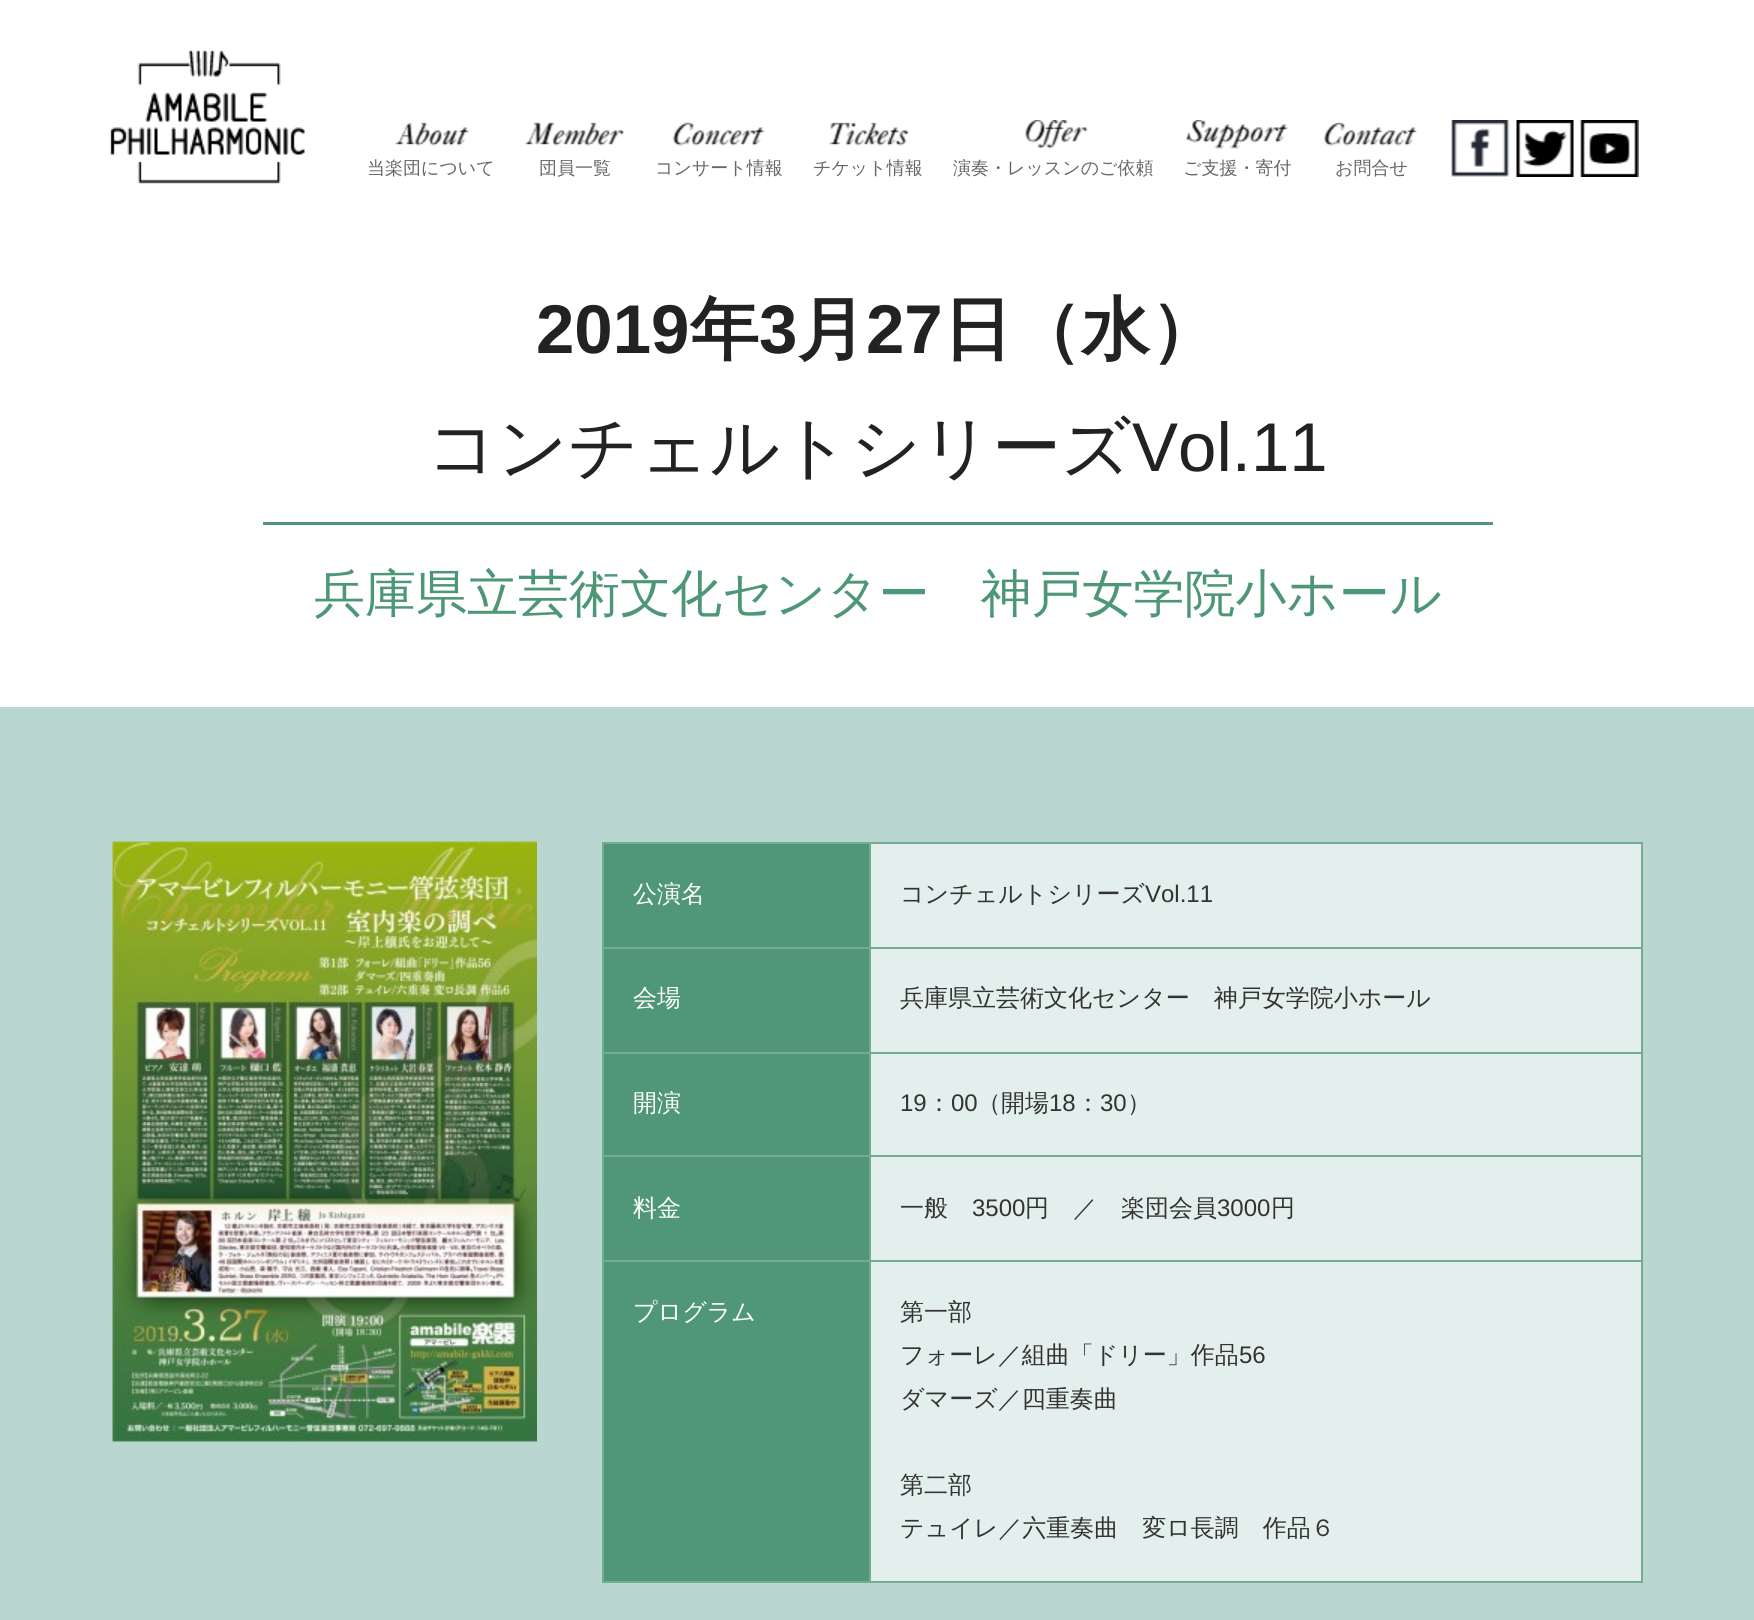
#include <cairo.h>
#include <math.h>
#include <stddef.h>

static cairo_t *c;
static void C(unsigned color){cairo_set_source_rgb(c, (color >> 16) / 255.0, (color >> 8 & 255) / 255.0, (color & 255) / 255.0);}
static void F(const char *family, double size, int italic, int bold){cairo_select_font_face(c, family, italic ? CAIRO_FONT_SLANT_ITALIC : CAIRO_FONT_SLANT_NORMAL,bold ? CAIRO_FONT_WEIGHT_BOLD : CAIRO_FONT_WEIGHT_NORMAL);cairo_set_font_size(c, size);}
static void T(double x, double y, const char *s){cairo_move_to(c, x, y);cairo_show_text(c, s);}
static void R(double x, double y, double w, double h){cairo_rectangle(c, x, y, w, h);cairo_fill(c);}
static void I(const char *path, double x, double y, double w, double h){cairo_surface_t *image = cairo_image_surface_create_from_png(path);cairo_save(c);cairo_set_source_surface(c, image, x, y);cairo_rectangle(c, x, y, w, h);cairo_fill(c);cairo_restore(c);cairo_surface_destroy(image);}
int main(void) {
cairo_surface_t *surface = cairo_image_surface_create(CAIRO_FORMAT_RGB24, 1754, 1620);
c = cairo_create(surface);
cairo_font_options_t *options = cairo_font_options_create();
cairo_font_options_set_hint_metrics(options, CAIRO_HINT_METRICS_OFF);
cairo_font_options_set_hint_style(options, CAIRO_HINT_STYLE_NONE);
cairo_set_font_options(c, options);
cairo_set_miter_limit(c, 4);
C(0xb9d6d1);
cairo_paint(c);
C(0xffffff);
R(0,0,1754,707);
I("1.png",110,50,195,134);
I("2.png",395,122,74,24);
F("WenQuanYi Zen Hei Medium",18,0,0);
C(0x666666);
T(367,174,"当楽団について");
I("3.png",524,122,101,24);
T(539,174,"団員一覧");
I("4.png",672,122,93,24);
T(655,174,"コンサート情報");
I("5.png",829,122,80,24);
T(813,174,"チケット情報");
I("6.png",1025,120,63,29);
T(953,174,"演奏・レッスンのご依頼");
I("7.png",1186,120,102,29);
T(1183,174,"ご支援・寄付");
I("8.png",1323,122,94,24);
T(1335,174,"お問合せ");
I("9.png",1451,120,59,57);
I("10.png",1516,120,58,57);
I("11.png",1580,120,59,57);
F("Liberation Sans",69,0,1);
C(0x222222);
T(536,353,"2019");
F("WenQuanYi Zen Hei",69,0,1);
T(690,353,"年");
F("Liberation Sans",69,0,1);
T(759,353,"3");
F("WenQuanYi Zen Hei",69,0,1);
T(797,353,"月");
F("Liberation Sans",69,0,1);
T(866,353,"27");
F("WenQuanYi Zen Hei",69,0,1);
T(943,353,"日（水）");
C(0x4f9776);
R(263,522,1230,3);
F("WenQuanYi Zen Hei Medium",69,0,0);
C(0x222222);
T(427,471,"コンチェルトシリーズ");
F("Liberation Sans",69,0,0);
T(1132,471,"Vol.11");
F("WenQuanYi Zen Hei Medium",51,0,0);
C(0x4e9776);
T(314,611,"兵庫県立芸術文化センター　神戸女学院小ホール");
I("12.png",112,841,425,601);
C(0xe3efed);
R(871,844,770,737);
C(0x72ac91);
R(602,842,1041,2);
R(1641,842,2,741);
R(602,1581,1041,2);
R(602,842,2,741);
C(0x4f9776);
R(604,844,265,103);
F("WenQuanYi Zen Hei Medium",24,0,0);
C(0xffffff);
T(633,902,"公演名");
C(0x72ac91);
R(869,947,774,2);
R(869,1052,774,2);
R(869,1155,774,2);
R(869,1260,774,2);
R(869,1260,2,323);
R(602,1260,268,2);
R(869,1155,2,107);
R(602,1155,268,2);
R(869,1052,2,105);
R(602,1052,268,2);
R(869,947,2,106);
R(602,947,268,2);
R(869,842,2,106);
C(0x333333);
T(900,902,"コンチェルトシリーズ");
F("Liberation Sans",24,0,0);
T(1145,902,"Vol.11");
C(0x4f9776);
R(604,949,265,103);
F("WenQuanYi Zen Hei Medium",24,0,0);
C(0xffffff);
T(633,1006,"会場");
C(0x333333);
T(900,1006,"兵庫県立芸術文化センター　神戸女学院小ホール");
C(0x4f9776);
R(604,1054,265,101);
C(0xffffff);
T(633,1111,"開演");
F("Liberation Sans",24,0,0);
C(0x333333);
T(900,1111,"19");
F("WenQuanYi Zen Hei Medium",24,0,0);
T(927,1111,"：");
F("Liberation Sans",24,0,0);
T(951,1111,"00");
F("WenQuanYi Zen Hei Medium",24,0,0);
T(977,1111,"（開場");
F("Liberation Sans",24,0,0);
T(1049,1111,"18");
F("WenQuanYi Zen Hei Medium",24,0,0);
T(1076,1111,"：");
F("Liberation Sans",24,0,0);
T(1100,1111,"30");
F("WenQuanYi Zen Hei Medium",24,0,0);
T(1127,1111,"）");
C(0x4f9776);
R(604,1157,265,103);
C(0xffffff);
T(633,1216,"料金");
C(0x333333);
T(900,1216,"一般");
F("Liberation Sans",24,0,0);
T(972,1216,"3500");
F("WenQuanYi Zen Hei Medium",24,0,0);
T(1025,1216,"円　／　楽団会員");
F("Liberation Sans",24,0,0);
T(1217,1216,"3000");
F("WenQuanYi Zen Hei Medium",24,0,0);
T(1271,1216,"円");
C(0x4f9776);
R(604,1262,265,319);
C(0xffffff);
T(633,1320,"プログラム");
C(0x333333);
T(900,1320,"第一部");
T(900,1363,"フォーレ／組曲「ドリー」作品");
F("Liberation Sans",24,0,0);
T(1239,1363,"56");
F("WenQuanYi Zen Hei Medium",24,0,0);
T(900,1407,"ダマーズ／四重奏曲");
T(900,1493,"第二部");
T(900,1536,"テュイレ／六重奏曲　変ロ長調　作品６");
cairo_surface_write_to_png(surface, "o.png");
cairo_font_options_destroy(options);
cairo_destroy(c);
cairo_surface_destroy(surface);
return 0;
}
